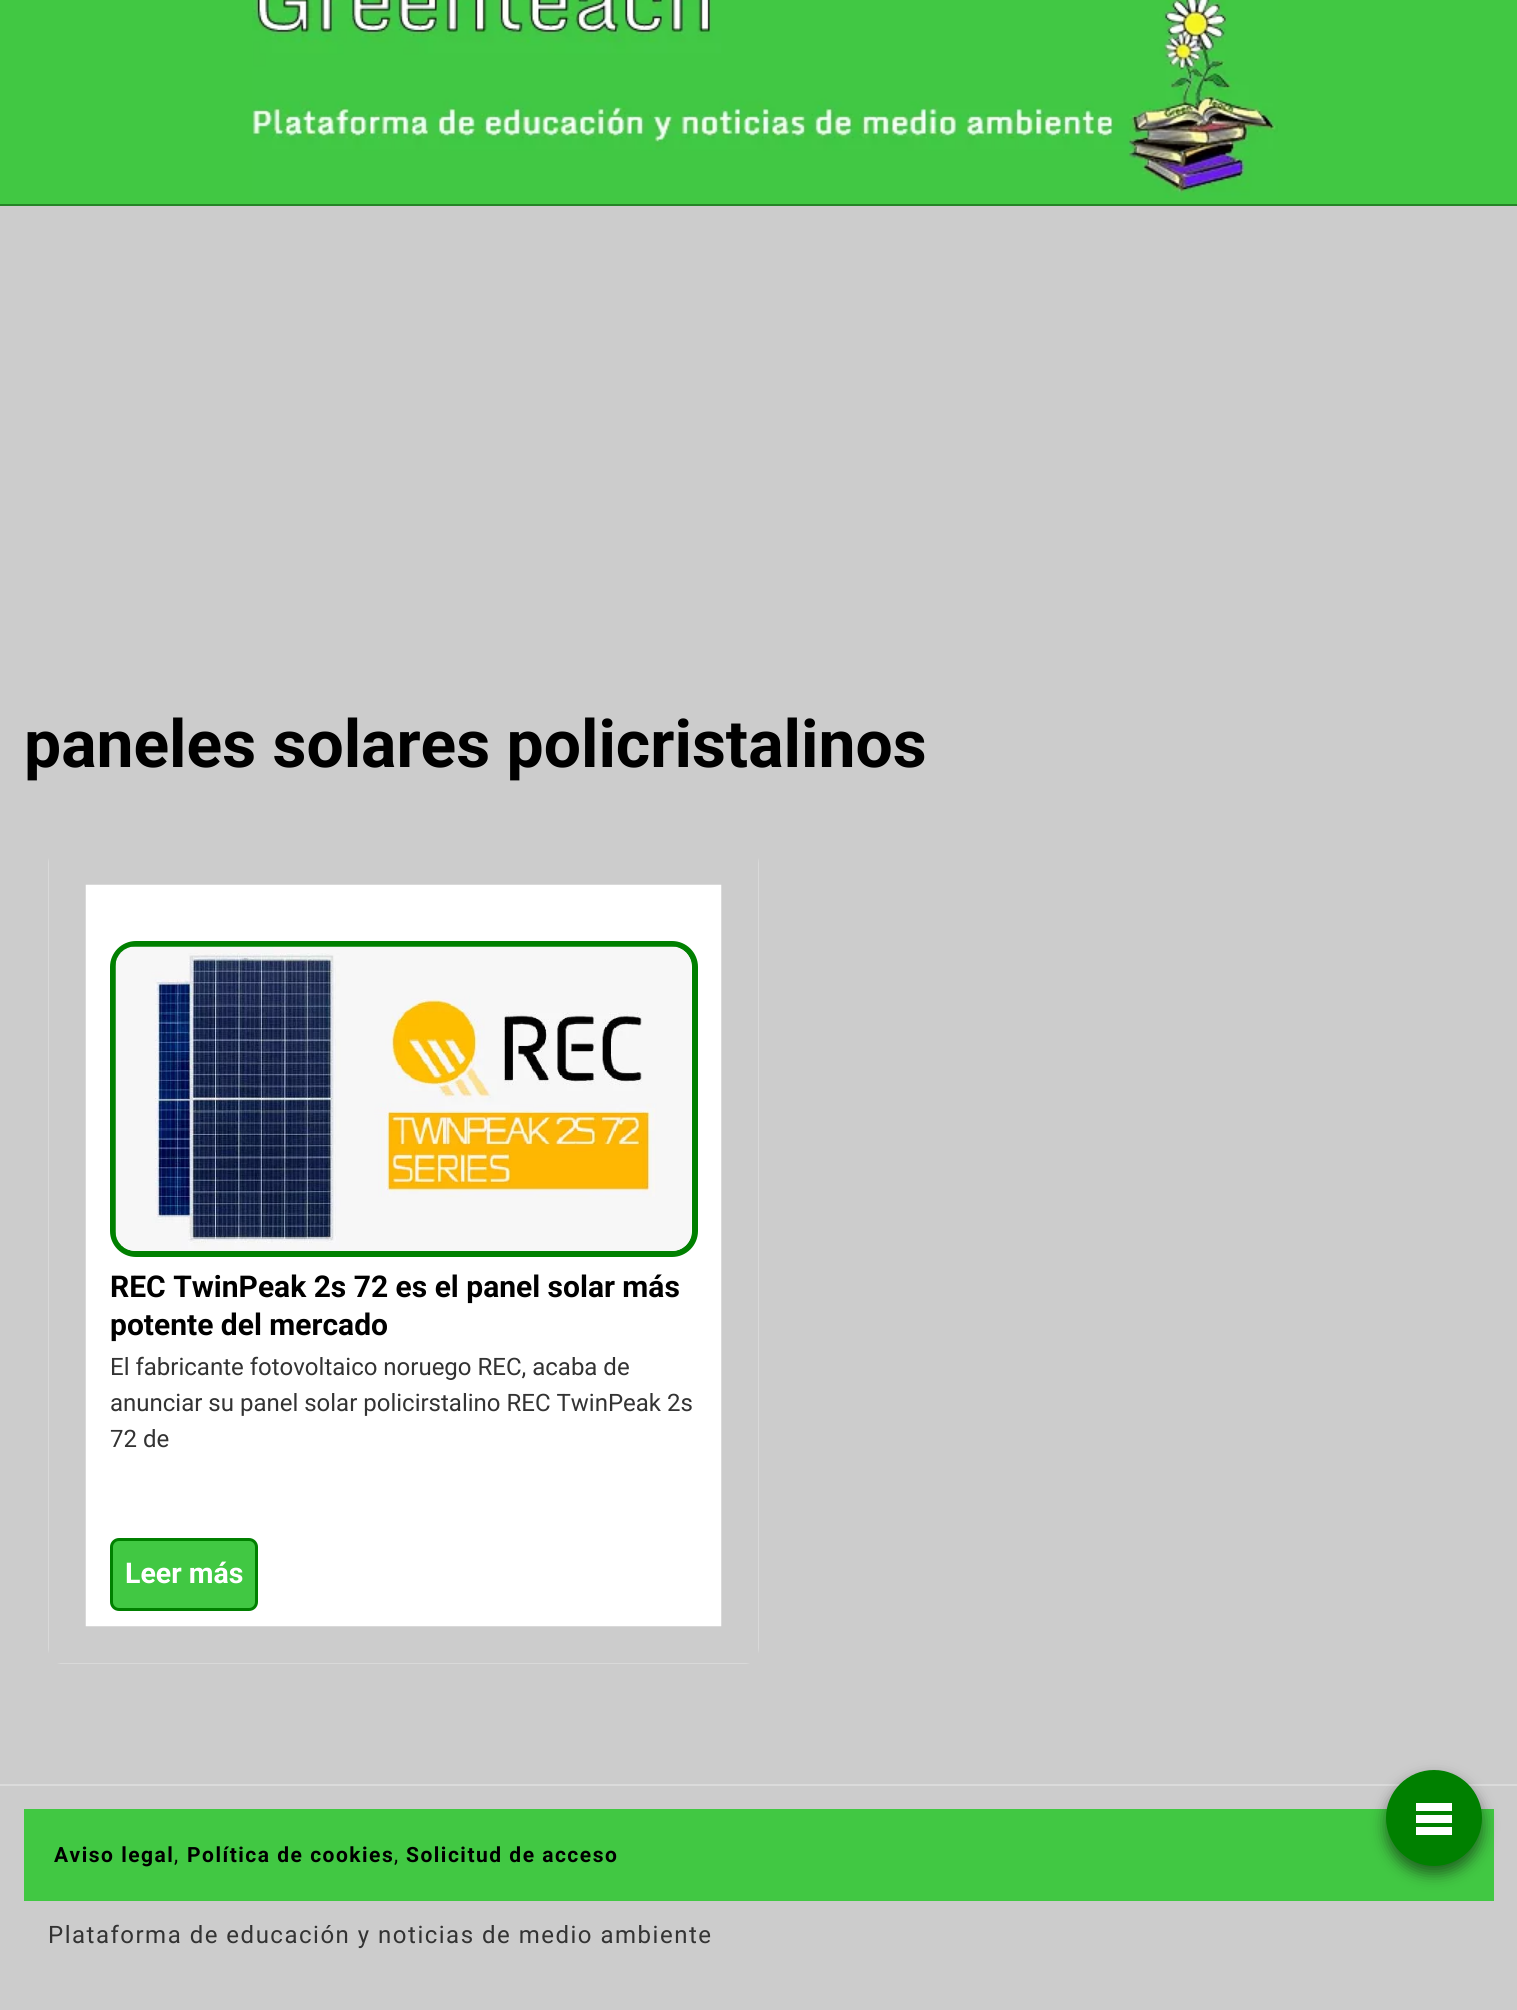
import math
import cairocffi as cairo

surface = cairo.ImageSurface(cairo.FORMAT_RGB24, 1517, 2010)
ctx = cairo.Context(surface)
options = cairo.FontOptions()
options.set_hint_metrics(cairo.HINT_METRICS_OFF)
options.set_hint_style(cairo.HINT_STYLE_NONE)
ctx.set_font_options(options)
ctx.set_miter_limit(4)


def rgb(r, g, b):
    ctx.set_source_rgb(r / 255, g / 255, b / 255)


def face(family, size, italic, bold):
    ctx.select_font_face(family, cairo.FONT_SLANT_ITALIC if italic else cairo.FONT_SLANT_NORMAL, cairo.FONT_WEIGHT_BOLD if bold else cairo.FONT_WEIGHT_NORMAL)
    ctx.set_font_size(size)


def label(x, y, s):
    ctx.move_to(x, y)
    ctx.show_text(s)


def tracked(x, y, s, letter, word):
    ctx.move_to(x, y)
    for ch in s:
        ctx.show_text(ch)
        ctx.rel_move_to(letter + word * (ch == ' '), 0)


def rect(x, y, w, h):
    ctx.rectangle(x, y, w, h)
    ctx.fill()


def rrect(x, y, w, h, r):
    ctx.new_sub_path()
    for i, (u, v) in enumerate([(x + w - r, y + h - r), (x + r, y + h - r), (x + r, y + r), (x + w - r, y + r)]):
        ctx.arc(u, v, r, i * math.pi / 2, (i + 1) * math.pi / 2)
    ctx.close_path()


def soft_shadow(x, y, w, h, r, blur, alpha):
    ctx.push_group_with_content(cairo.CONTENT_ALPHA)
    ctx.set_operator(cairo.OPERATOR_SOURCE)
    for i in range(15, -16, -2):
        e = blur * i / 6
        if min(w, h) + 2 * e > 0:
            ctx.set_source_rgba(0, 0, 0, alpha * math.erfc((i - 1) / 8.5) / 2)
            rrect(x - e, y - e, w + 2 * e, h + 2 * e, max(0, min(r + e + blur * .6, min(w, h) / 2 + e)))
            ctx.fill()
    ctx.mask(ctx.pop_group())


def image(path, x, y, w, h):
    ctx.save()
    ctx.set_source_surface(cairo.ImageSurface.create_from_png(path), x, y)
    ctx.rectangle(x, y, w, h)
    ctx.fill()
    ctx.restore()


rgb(204, 204, 204)
ctx.paint()
rgb(65, 200, 67)
rect(0, 0, 1517, 204)
rgb(38, 132, 40)
rect(0, 204, 1517, 2)
image('image0.png', 252, 0, 1026, 198)
face('Roboto', 66, 0, 1)
rgb(0, 0, 0)
label(24, 767, 'paneles solares policristalinos')
rgb(255, 255, 255)
ctx.new_path()
ctx.move_to(62, 848)
ctx.line_to(745, 848)
ctx.curve_to(753, 848, 759, 855, 759, 864)
ctx.line_to(759, 1647)
ctx.curve_to(759, 1656, 753, 1664, 745, 1664)
ctx.line_to(62, 1664)
ctx.curve_to(54, 1664, 48, 1656, 48, 1647)
ctx.line_to(48, 864)
ctx.curve_to(48, 855, 54, 848, 62, 848)
ctx.close_path()
ctx.fill()
ctx.new_path()
ctx.move_to(67, 866)
ctx.line_to(740, 866)
ctx.line_to(740, 1645)
ctx.line_to(67, 1645)
ctx.close_path()
rgb(204, 204, 204)
ctx.set_line_width(37.5)
ctx.stroke()
rrect(113, 944, 582, 310, 23)
rgb(0, 128, 0)
ctx.set_line_width(6)
ctx.stroke()
image('image1.png', 115, 946, 577, 305)
face('Roboto', 30, 0, 1)
rgb(0, 0, 0)
label(110, 1297, 'REC TwinPeak 2s 72 es el panel solar más')
label(110, 1335, 'potente del mercado')
face('Roboto', 24, 0, 0)
rgb(51, 51, 51)
label(110, 1375, 'El fabricante fotovoltaico noruego REC, acaba de')
label(110, 1411, 'anunciar su panel solar policirstalino REC TwinPeak 2s')
label(110, 1447, '72 de')
rgb(65, 200, 67)
rrect(111.5, 1539.5, 145, 70, 7.5)
ctx.fill_preserve()
rgb(0, 128, 0)
ctx.set_line_width(3)
ctx.stroke()
face('Roboto', 28.5, 0, 1)
rgb(255, 255, 255)
label(125, 1583, 'Leer más')
rgb(219, 219, 219)
rect(0, 1784, 1517, 2)
rgb(65, 200, 67)
rect(24, 1809, 1470, 92)
face('Roboto', 21, 0, 1)
rgb(0, 0, 0)
tracked(54, 1862, 'Aviso legal', 1.5, 0)
face('Roboto', 21, 0, 0)
tracked(174, 1862, ',', 1.5, 0)
face('Roboto', 21, 0, 1)
tracked(187, 1862, 'Política de cookies', 1.5, 0)
face('Roboto', 21, 0, 0)
tracked(394, 1862, ',', 1.5, 0)
face('Roboto', 21, 0, 1)
tracked(406, 1862, 'Solicitud de acceso', 1.5, 0)
face('Roboto', 24, 0, 0)
rgb(51, 51, 51)
tracked(48, 1943, 'Plataforma de educación y noticias de medio ambiente', 1.5, 0)
rgb(0, 0, 0)
soft_shadow(1386, 1778, 96, 96, 48, 7.5, 0.5)
rgb(0, 128, 0)
ctx.arc(1434, 1818, 48, 0, 2 * math.pi)
ctx.fill()
rgb(255, 255, 255)
rect(1416, 1815, 36, 8)
rect(1416, 1803, 36, 8)
rect(1416, 1827, 36, 8)
surface.write_to_png('render.png')
